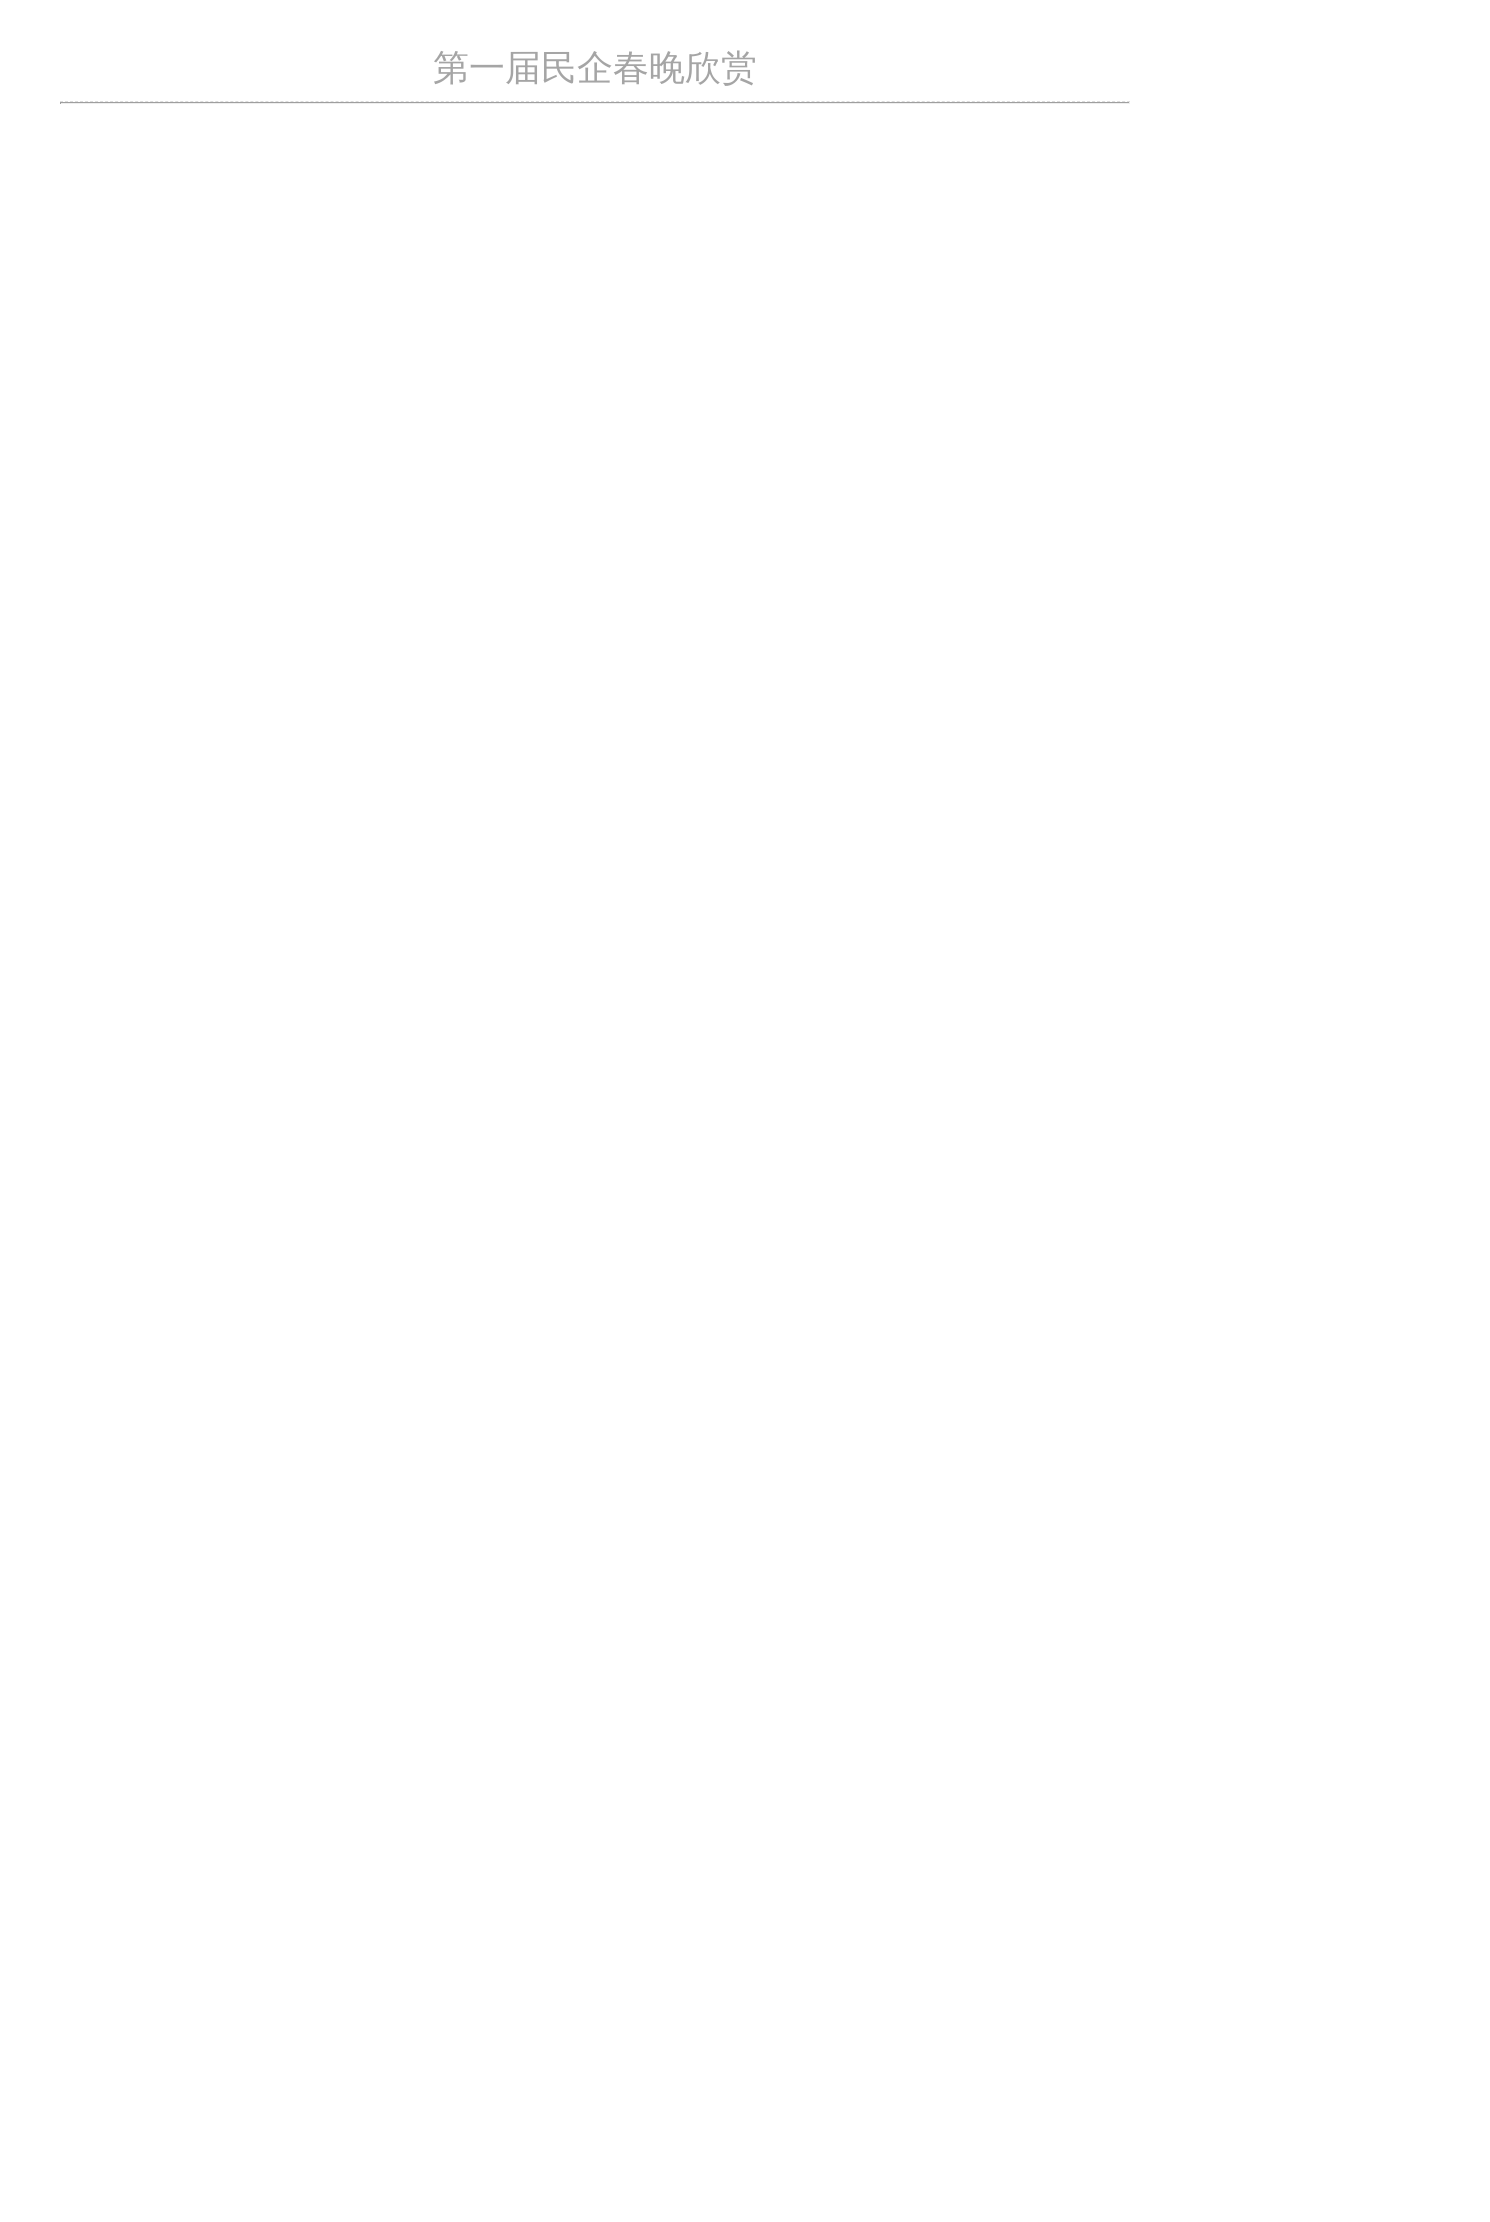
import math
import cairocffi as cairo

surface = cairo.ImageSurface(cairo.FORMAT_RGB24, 1490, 2222)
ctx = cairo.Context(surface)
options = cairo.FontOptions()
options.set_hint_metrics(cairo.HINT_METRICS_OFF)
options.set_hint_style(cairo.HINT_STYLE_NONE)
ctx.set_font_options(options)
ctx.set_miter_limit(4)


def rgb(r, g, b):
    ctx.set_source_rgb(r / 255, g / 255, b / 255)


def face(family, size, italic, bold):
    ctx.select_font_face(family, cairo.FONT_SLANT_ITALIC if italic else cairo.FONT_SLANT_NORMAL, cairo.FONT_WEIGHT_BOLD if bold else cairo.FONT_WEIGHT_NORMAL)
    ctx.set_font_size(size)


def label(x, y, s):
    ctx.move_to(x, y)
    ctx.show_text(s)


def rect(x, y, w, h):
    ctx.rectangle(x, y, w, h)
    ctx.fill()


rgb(255, 255, 255)
ctx.paint()
ctx.new_path()
ctx.move_to(60, 101.5)
ctx.line_to(1130, 101.5)
rgb(221, 221, 221)
ctx.set_line_width(1)
ctx.set_dash([3, 2.01])
ctx.stroke()
face('WenQuanYi Zen Hei Medium', 36, 0, 0)
rgb(165, 165, 165)
label(433, 80, '第一届民企春晚欣赏')
rgb(159, 159, 159)
rect(60, 102, 1070, 1)
rgb(238, 238, 238)
rect(1129, 102, 1, 2)
rect(60, 103, 1070, 1)
rgb(159, 159, 159)
rect(60, 102, 1, 2)
surface.write_to_png('render.png')
